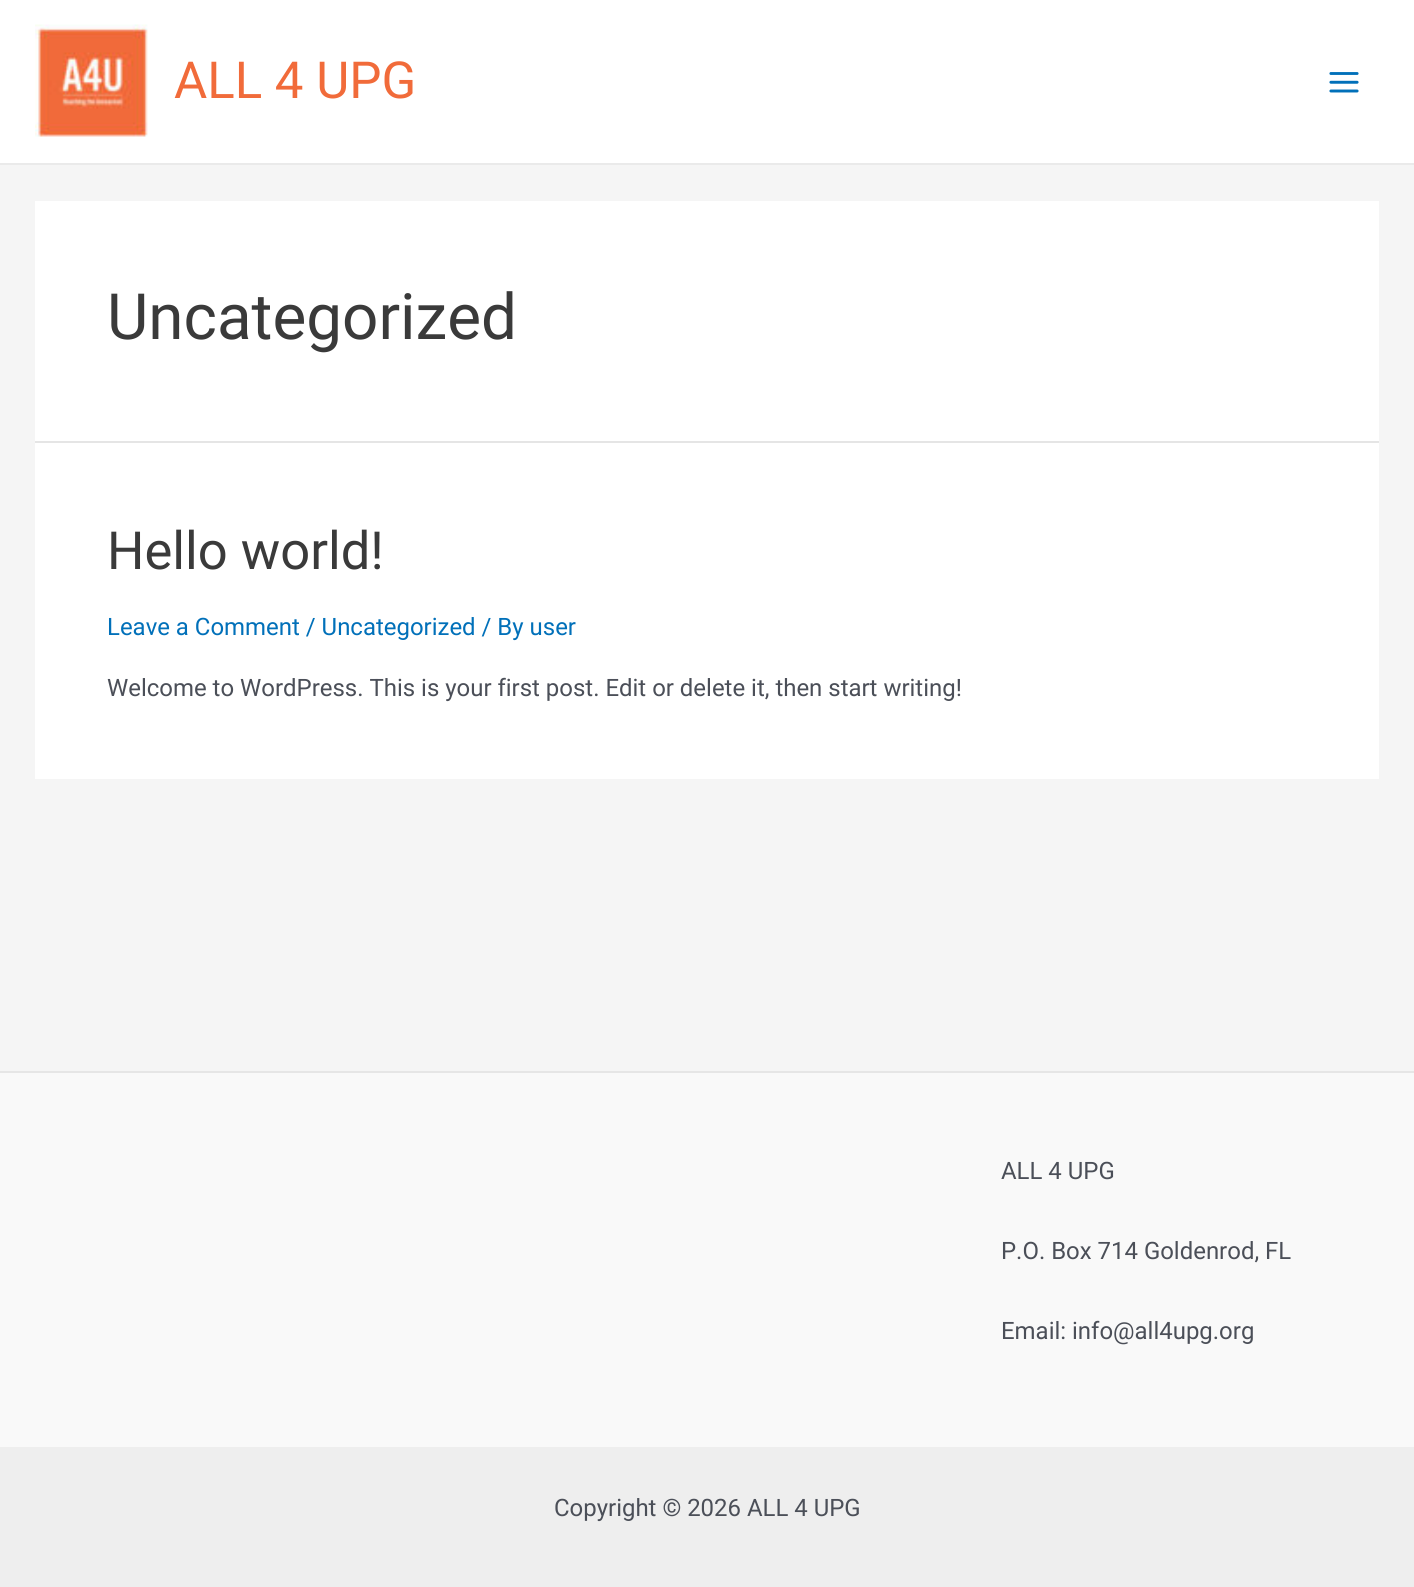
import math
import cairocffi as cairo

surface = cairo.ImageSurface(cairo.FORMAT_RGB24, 1414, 1587)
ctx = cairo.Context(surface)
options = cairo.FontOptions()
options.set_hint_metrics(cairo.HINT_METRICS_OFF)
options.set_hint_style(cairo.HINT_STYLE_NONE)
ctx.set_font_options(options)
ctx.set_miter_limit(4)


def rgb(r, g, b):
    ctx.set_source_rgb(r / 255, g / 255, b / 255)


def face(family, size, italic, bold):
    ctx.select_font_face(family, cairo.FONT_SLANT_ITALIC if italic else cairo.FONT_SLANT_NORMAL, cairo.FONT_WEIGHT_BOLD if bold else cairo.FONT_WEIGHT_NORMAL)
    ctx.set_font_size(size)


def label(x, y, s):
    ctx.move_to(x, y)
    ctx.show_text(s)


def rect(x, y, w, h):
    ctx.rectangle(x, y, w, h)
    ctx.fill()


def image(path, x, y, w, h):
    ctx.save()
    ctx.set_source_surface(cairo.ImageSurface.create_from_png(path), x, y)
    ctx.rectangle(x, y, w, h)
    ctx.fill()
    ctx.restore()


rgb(245, 245, 245)
ctx.paint()
rgb(255, 255, 255)
rect(0, 0, 1414, 163)
rgb(234, 234, 234)
rect(0, 163, 1414, 2)
image('image0.png', 35, 24, 113, 113)
face('Roboto', 51, 0, 0)
rgb(241, 107, 58)
label(174, 98, 'ALL 4 UPG')
image('image1.png', 1329, 72, 30, 21)
rgb(255, 255, 255)
rect(35, 201, 1344, 240)
rgb(229, 229, 229)
rect(35, 441, 1344, 2)
face('Roboto', 63.75, 0, 0)
rgb(58, 58, 58)
label(107, 339, 'Uncategorized')
rgb(255, 255, 255)
rect(35, 443, 1344, 336)
face('Roboto', 52.5, 0, 0)
rgb(58, 58, 58)
label(107, 569, 'Hello world!')
face('Roboto', 23.95, 0, 0)
rgb(1, 112, 185)
label(107, 635, 'Leave a Comment / Uncategorized / By user')
rgb(75, 79, 88)
label(107, 696, 'Welcome to WordPress. This is your first post. Edit or delete it, then start writing!')
rgb(249, 249, 249)
rect(0, 1073, 1414, 374)
rgb(230, 230, 230)
rect(0, 1071, 1414, 2)
rgb(75, 79, 88)
label(1001, 1179, 'ALL 4 UPG')
label(1001, 1259, 'P.O. Box 714 Goldenrod, FL')
label(1001, 1339, 'Email: info@all4upg.org')
rgb(238, 238, 238)
rect(0, 1447, 1414, 140)
rgb(75, 79, 88)
label(554, 1516, 'Copyright © 2026 ALL 4 UPG')
surface.write_to_png('render.png')
